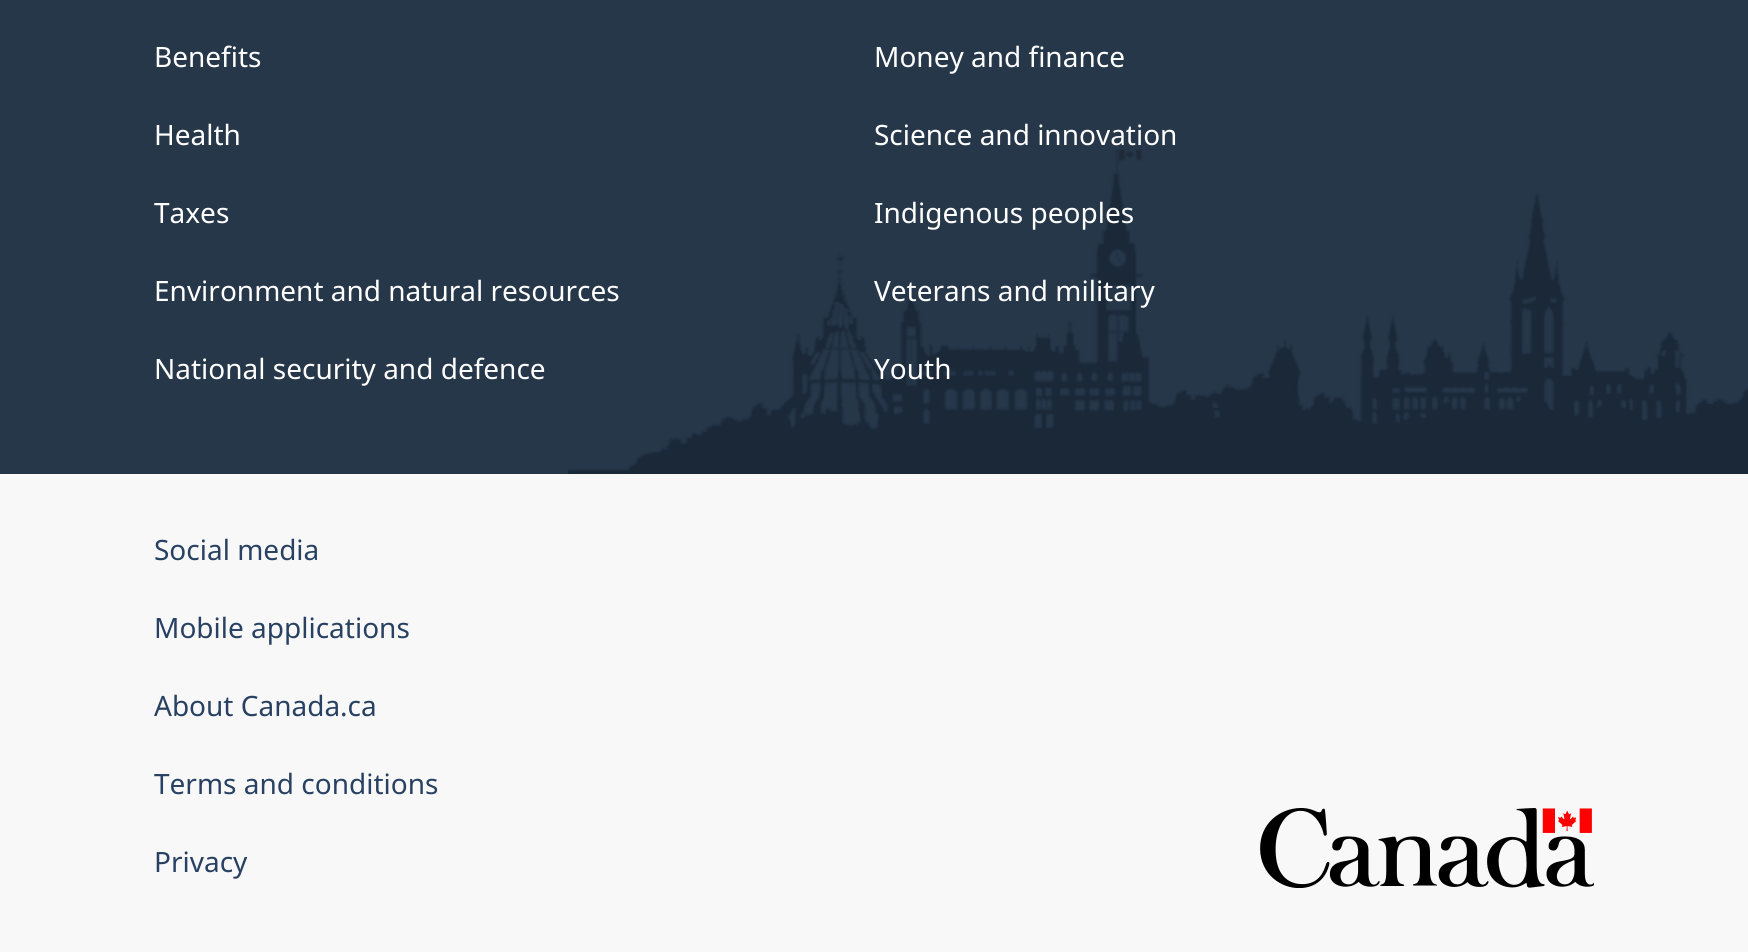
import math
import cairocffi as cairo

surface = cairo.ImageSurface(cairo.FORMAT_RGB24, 1748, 952)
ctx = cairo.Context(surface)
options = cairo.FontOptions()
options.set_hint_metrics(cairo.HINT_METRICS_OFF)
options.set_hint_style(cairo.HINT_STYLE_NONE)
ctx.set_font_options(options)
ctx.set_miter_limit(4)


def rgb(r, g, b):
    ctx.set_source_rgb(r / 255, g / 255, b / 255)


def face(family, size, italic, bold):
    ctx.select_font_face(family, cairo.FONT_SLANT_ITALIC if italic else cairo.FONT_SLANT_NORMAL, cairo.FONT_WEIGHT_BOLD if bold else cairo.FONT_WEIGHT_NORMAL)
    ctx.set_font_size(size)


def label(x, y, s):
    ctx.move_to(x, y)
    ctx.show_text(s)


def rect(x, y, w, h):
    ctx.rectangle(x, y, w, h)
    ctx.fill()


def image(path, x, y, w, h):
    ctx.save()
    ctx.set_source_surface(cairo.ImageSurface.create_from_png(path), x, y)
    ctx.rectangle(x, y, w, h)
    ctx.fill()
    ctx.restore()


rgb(38, 55, 74)
ctx.paint()
image('image0.png', 567, 149, 1181, 325)
face('Noto Sans', 28, 0, 0)
rgb(255, 255, 255)
label(154, 67, 'Benefits')
label(874, 67, 'Money and finance')
label(154, 145, 'Health')
label(874, 145, 'Science and innovation')
label(154, 223, 'Taxes')
label(874, 223, 'Indigenous peoples')
label(154, 301, 'Environment and natural resources')
label(874, 301, 'Veterans and military')
label(154, 379, 'National security and defence')
label(874, 379, 'Youth')
rgb(248, 248, 248)
rect(0, 474, 1748, 478)
rgb(40, 65, 98)
label(154, 560, 'Social media')
label(154, 638, 'Mobile applications')
label(154, 716, 'About Canada.ca')
label(154, 794, 'Terms and conditions')
label(154, 872, 'Privacy')
image('image1.png', 1260, 808, 334, 80)
surface.write_to_png('render.png')
